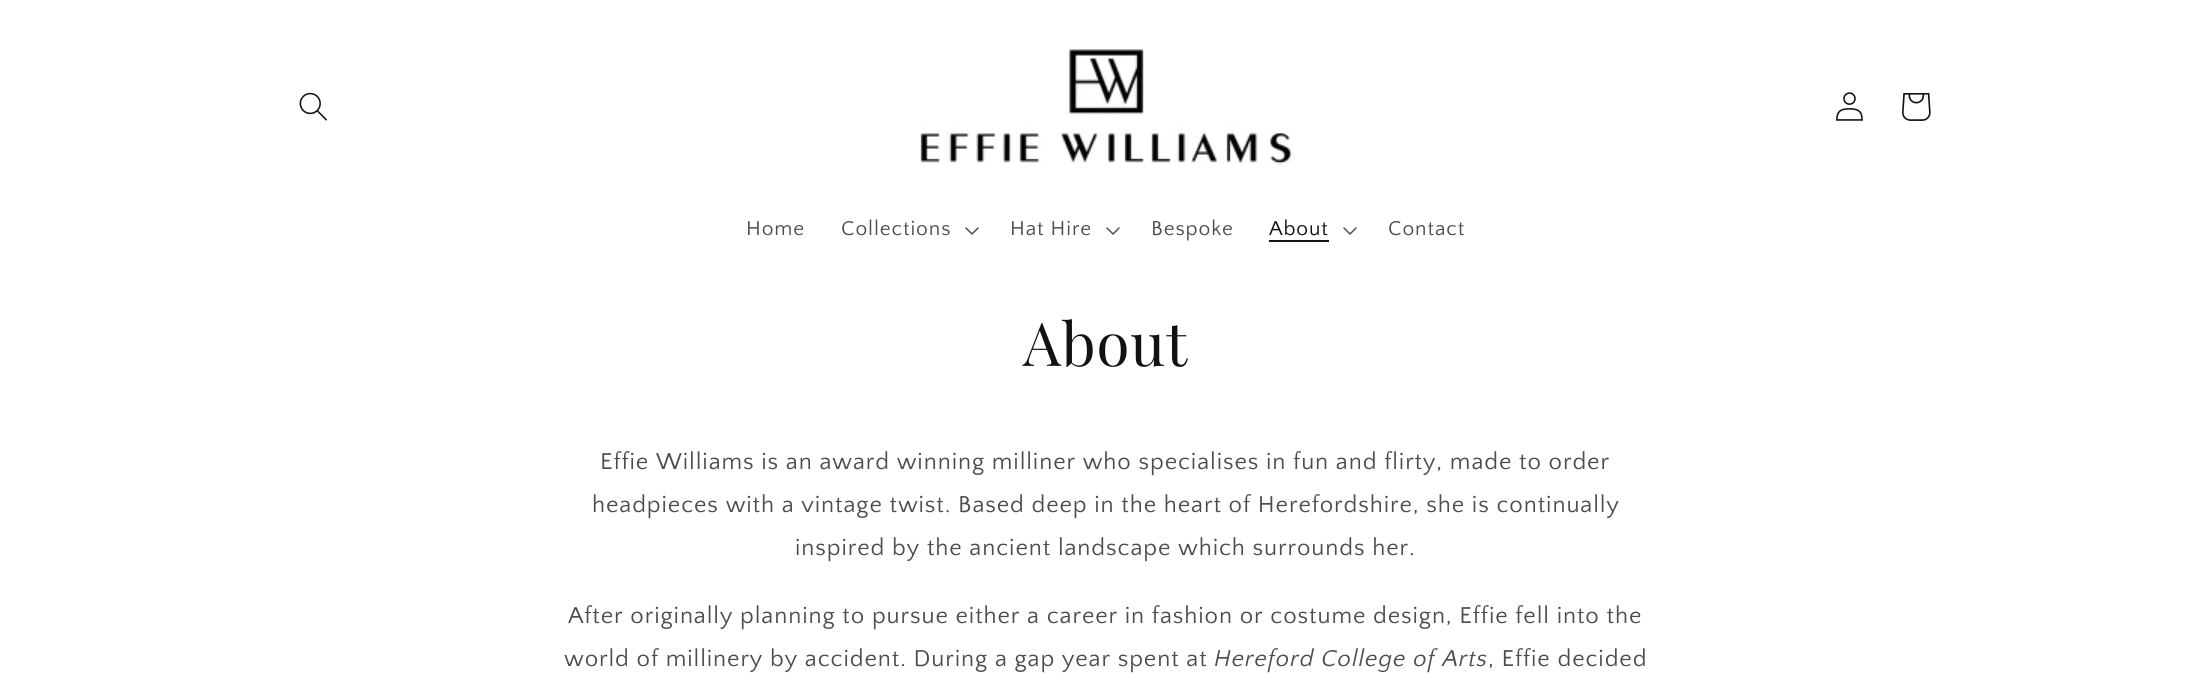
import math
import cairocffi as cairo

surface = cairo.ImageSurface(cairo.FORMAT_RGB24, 2210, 685)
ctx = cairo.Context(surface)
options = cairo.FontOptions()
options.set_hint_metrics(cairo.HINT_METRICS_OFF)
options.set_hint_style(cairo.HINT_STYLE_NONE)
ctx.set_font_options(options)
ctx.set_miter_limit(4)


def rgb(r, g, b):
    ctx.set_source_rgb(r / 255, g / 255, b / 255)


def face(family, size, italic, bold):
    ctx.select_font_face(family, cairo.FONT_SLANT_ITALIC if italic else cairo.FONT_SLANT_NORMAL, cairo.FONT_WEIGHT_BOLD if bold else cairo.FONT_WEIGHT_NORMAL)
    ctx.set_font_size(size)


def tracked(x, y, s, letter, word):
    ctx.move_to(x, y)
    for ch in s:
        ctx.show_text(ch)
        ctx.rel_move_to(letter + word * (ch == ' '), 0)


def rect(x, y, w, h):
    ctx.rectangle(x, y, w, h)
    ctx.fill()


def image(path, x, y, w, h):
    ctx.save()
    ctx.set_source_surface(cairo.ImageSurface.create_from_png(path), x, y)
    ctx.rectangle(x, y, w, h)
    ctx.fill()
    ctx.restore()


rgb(255, 255, 255)
ctx.paint()
image('image0.png', 299, 92, 28, 29)
image('image1.png', 920, 49, 372, 115)
image('image2.png', 1836, 92, 27, 29)
image('image3.png', 1902, 93, 29, 28)
face('Quattrocento Sans', 21, 0, 0)
rgb(77, 77, 77)
tracked(746, 235, 'Home', 0.9, 0)
tracked(841, 235, 'Collections', 0.9, 0)
image('image4.png', 965, 227, 14, 8)
tracked(1010, 235, 'Hat Hire', 0.9, 0)
image('image4.png', 1106, 227, 14, 8)
tracked(1151, 235, 'Bespoke', 0.9, 0)
rgb(18, 18, 18)
tracked(1269, 235, 'About', 0.9, 0)
rect(1269, 240, 60, 2)
image('image4.png', 1343, 227, 14, 8)
rgb(77, 77, 77)
tracked(1388, 235, 'Contact', 0.9, 0)
face('Playfair Display', 60, 0, 0)
rgb(18, 18, 18)
tracked(1023, 366, 'About', 0.9, 0)
face('Quattrocento Sans', 24, 0, 0)
rgb(77, 77, 77)
tracked(600, 469, 'Effie Williams is an award winning milliner who specialises in fun and flirty, made to order', 0.9, 0)
tracked(592, 512, 'headpieces with a vintage twist. Based deep in the heart of Herefordshire, she is continually', 0.9, 0)
tracked(795, 555, 'inspired by the ancient landscape which surrounds her.', 0.9, 0)
tracked(568, 623, 'After originally planning to pursue either a career in fashion or costume design, Effie fell into the', 0.9, 0)
tracked(564, 666, 'world of millinery by accident. During a gap year spent at', 0.9, 0)
face('Quattrocento Sans', 24, 1, 0)
tracked(1214, 666, 'Hereford College of Arts', 0.9, 0)
face('Quattrocento Sans', 24, 0, 0)
tracked(1488, 666, ', Effie decided', 0.9, 0)
surface.write_to_png('render.png')
